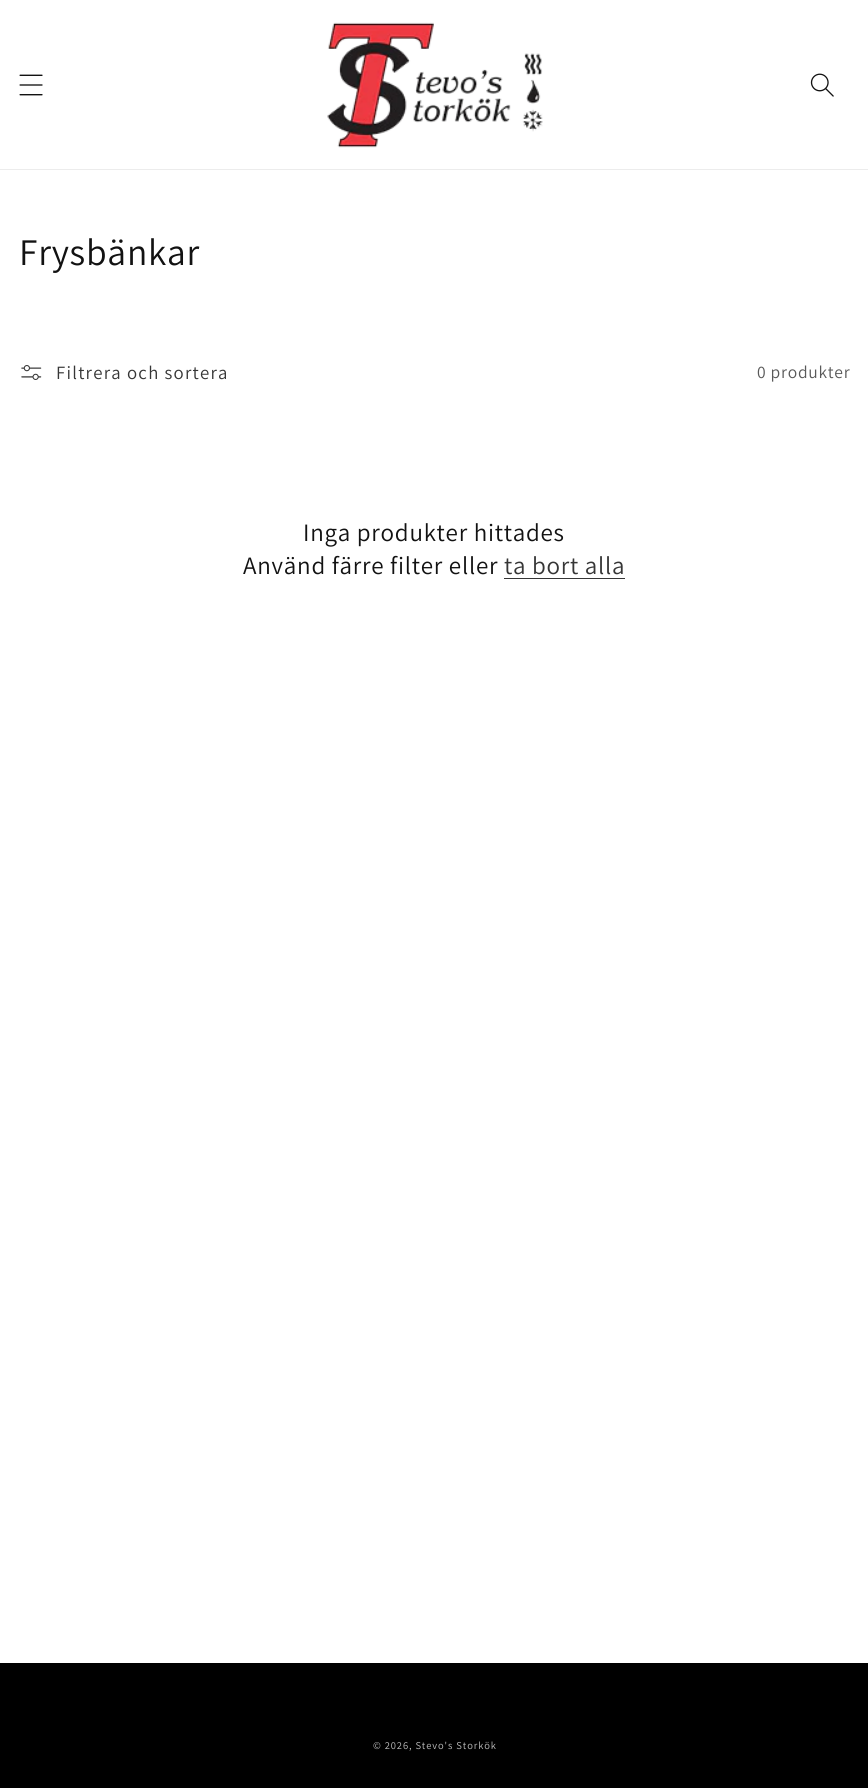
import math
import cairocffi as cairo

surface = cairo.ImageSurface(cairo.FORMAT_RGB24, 868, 1788)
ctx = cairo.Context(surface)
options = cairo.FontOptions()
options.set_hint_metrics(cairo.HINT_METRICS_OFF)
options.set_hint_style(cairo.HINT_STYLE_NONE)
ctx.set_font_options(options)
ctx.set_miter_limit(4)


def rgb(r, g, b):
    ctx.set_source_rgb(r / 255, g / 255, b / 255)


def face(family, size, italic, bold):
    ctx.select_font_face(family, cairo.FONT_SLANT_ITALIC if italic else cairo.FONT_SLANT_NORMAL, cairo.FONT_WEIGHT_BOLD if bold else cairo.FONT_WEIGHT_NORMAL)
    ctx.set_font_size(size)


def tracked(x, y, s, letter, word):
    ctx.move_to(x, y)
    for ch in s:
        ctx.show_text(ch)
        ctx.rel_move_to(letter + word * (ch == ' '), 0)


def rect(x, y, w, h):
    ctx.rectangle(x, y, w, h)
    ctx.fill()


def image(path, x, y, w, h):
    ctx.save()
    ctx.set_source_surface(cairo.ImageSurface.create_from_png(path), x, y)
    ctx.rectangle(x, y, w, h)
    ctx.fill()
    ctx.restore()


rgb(255, 255, 255)
ctx.paint()
rgb(236, 236, 236)
rect(0, 169, 868, 1)
image('image0.png', 19, 74, 24, 22)
image('image1.png', 327, 22, 216, 126)
image('image2.png', 810, 73, 24, 24)
face('Assistant', 37.5, 0, 0)
rgb(18, 18, 18)
tracked(19, 265, 'Frysbänkar', 0.75, 0)
image('image3.png', 21, 365, 21, 15)
face('Assistant', 18.75, 0, 0)
rgb(54, 54, 54)
tracked(56, 379, 'Filtrera och sortera', 1.25, 0)
face('Assistant', 17.5, 0, 0)
rgb(89, 89, 89)
tracked(757, 378, '0 produkter', 0.75, 0)
face('Assistant', 25, 0, 0)
rgb(18, 18, 18)
tracked(303, 541, 'Inga produkter hittades', 0.75, 0)
tracked(243, 574, 'Använd färre filter eller', 0.75, 0)
rgb(54, 54, 54)
tracked(504, 574, 'ta bort alla', 0.75, 0)
rect(504, 578, 121, 1)
rgb(0, 0, 0)
rect(0, 1663, 868, 125)
face('Assistant', 10.5, 0, 0)
rgb(191, 191, 191)
tracked(373, 1749, '© 2026, Stevo\'s Storkök', 0.9, 0)
surface.write_to_png('render.png')
